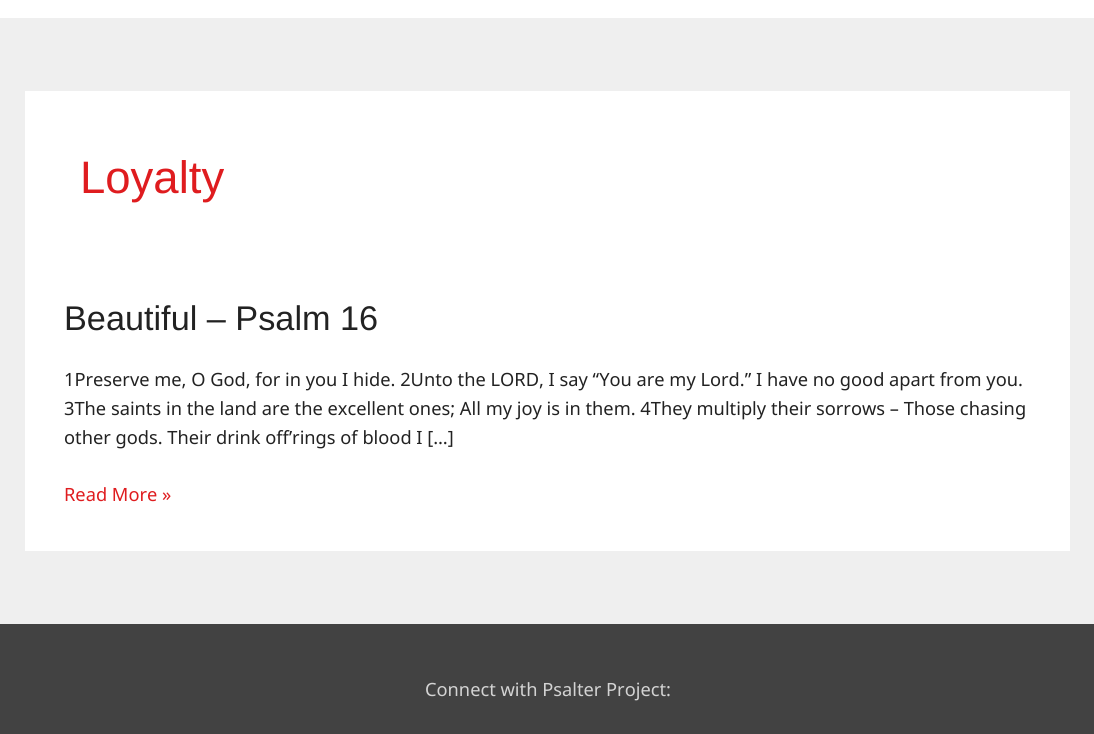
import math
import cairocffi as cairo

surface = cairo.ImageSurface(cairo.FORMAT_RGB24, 1094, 734)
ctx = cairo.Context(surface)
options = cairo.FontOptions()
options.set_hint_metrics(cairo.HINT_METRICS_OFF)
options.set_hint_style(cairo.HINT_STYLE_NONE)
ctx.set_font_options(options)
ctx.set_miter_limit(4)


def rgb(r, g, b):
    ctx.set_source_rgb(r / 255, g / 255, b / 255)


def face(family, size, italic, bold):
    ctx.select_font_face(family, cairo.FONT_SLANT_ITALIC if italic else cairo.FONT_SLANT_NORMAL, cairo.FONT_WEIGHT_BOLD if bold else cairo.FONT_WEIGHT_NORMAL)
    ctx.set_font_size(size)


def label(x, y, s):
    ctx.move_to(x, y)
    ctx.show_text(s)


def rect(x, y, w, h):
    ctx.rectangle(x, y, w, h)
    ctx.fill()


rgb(239, 239, 239)
ctx.paint()
rgb(255, 255, 255)
rect(0, 0, 1094, 18)
rect(25, 91, 1045, 460)
face('Liberation Sans', 45.5, 0, 0)
rgb(223, 28, 31)
label(80, 193, 'Loyalty')
face('Liberation Sans', 34.25, 0, 0)
rgb(34, 34, 34)
label(64, 330, 'Beautiful – Psalm 16')
face('Noto Sans', 18.25, 0, 0)
label(64, 386, '1Preserve me, O God, for in you I hide. 2Unto the LORD, I say “You are my Lord.” I have no good apart from you.')
label(64, 415, '3The saints in the land are the excellent ones; All my joy is in them. 4They multiply their sorrows – Those chasing')
label(64, 444, 'other gods. Their drink off’rings of blood I […]')
rgb(223, 28, 31)
label(64, 501, 'Read More »')
rgb(66, 66, 66)
rect(0, 624, 1094, 110)
rgb(211, 211, 211)
label(425, 696, 'Connect with Psalter Project:')
surface.write_to_png('render.png')
